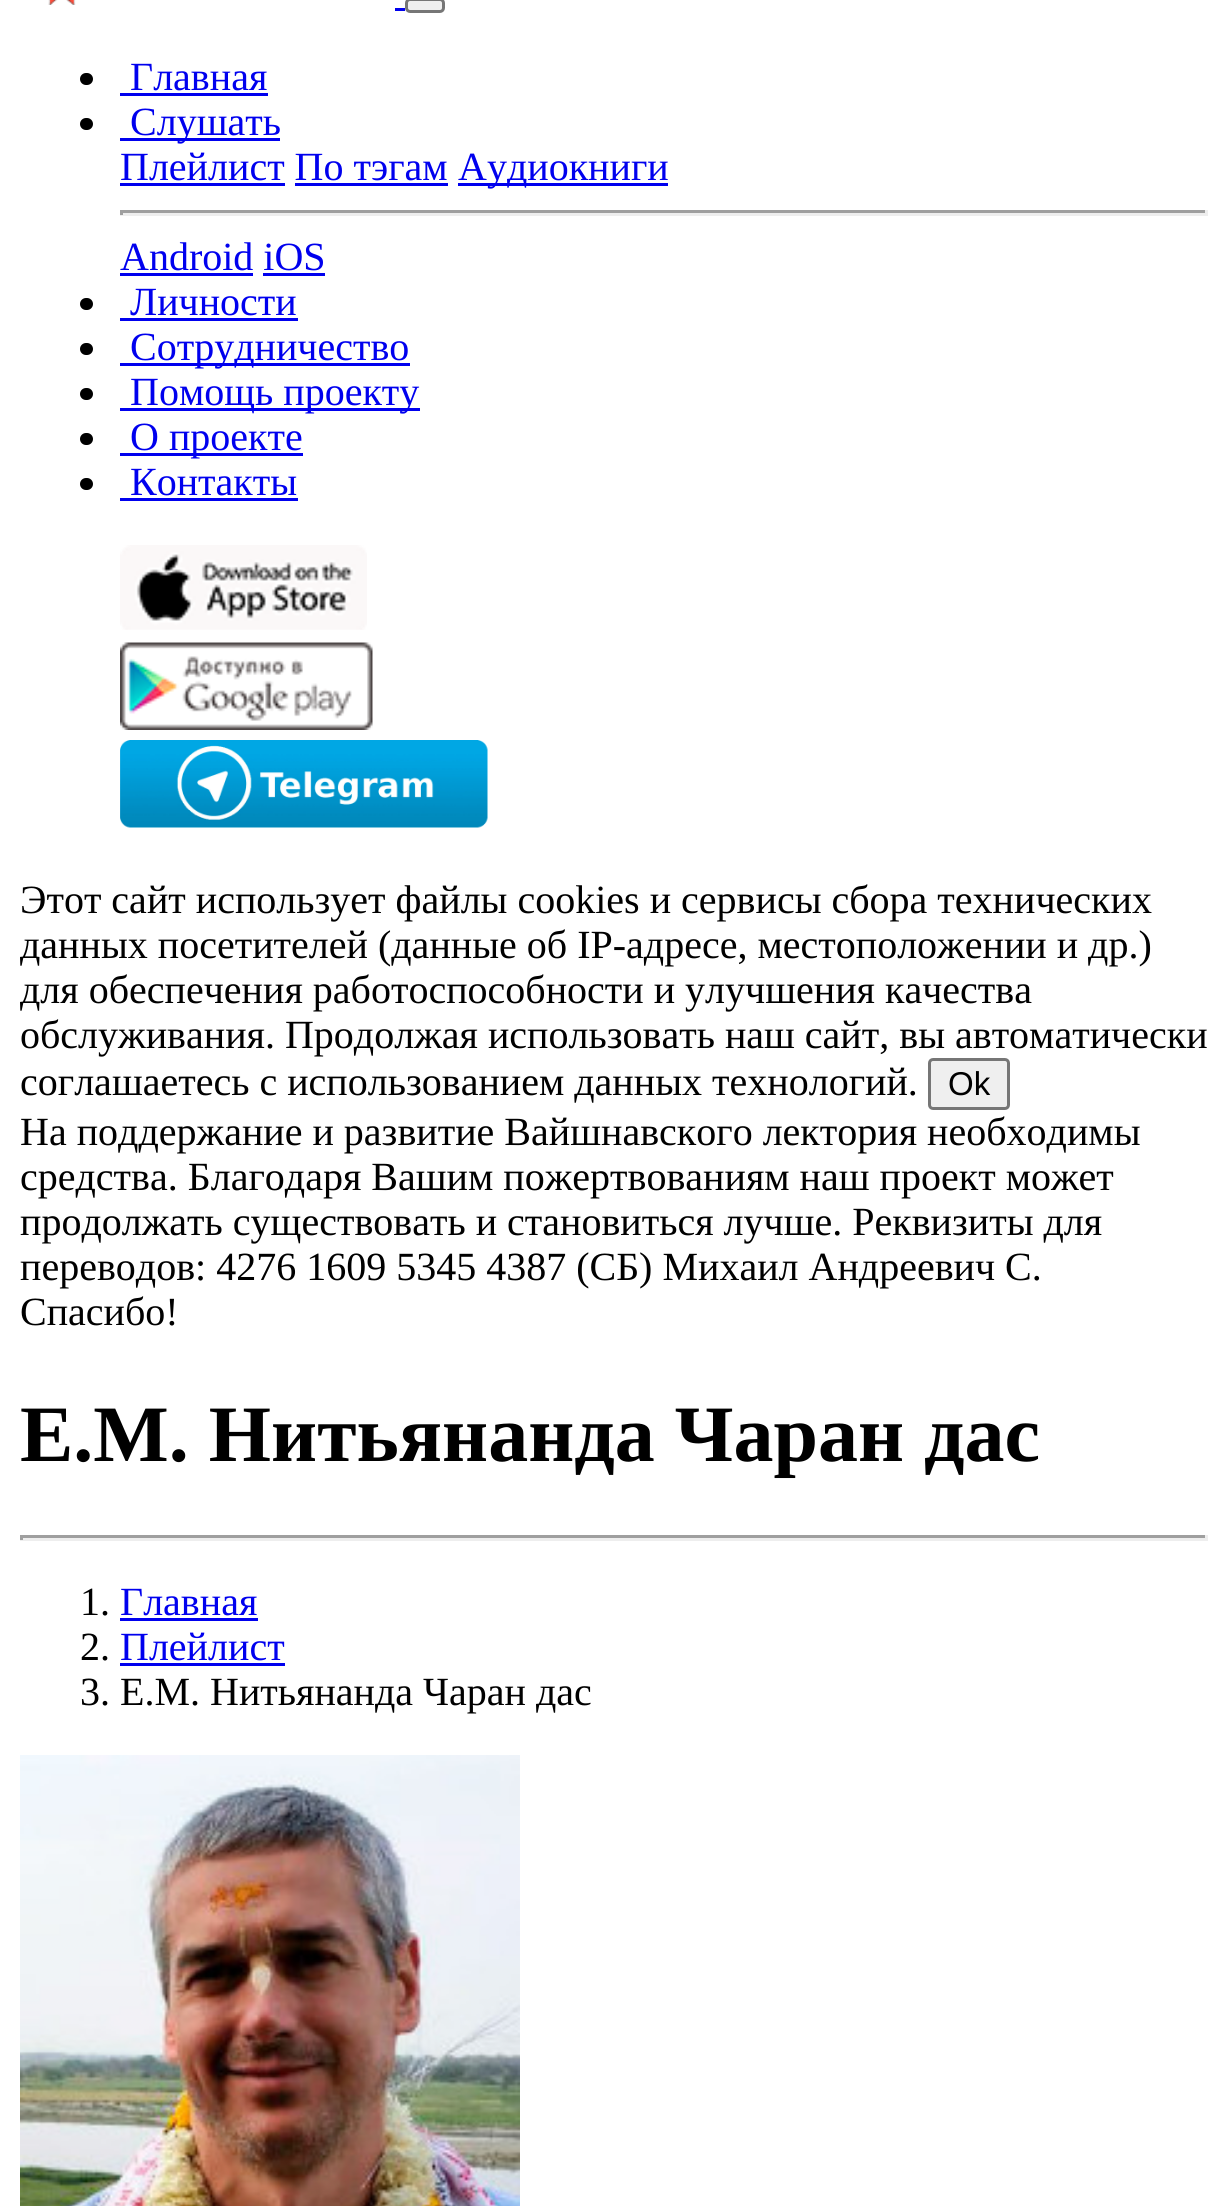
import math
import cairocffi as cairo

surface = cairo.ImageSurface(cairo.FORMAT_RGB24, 1226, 2206)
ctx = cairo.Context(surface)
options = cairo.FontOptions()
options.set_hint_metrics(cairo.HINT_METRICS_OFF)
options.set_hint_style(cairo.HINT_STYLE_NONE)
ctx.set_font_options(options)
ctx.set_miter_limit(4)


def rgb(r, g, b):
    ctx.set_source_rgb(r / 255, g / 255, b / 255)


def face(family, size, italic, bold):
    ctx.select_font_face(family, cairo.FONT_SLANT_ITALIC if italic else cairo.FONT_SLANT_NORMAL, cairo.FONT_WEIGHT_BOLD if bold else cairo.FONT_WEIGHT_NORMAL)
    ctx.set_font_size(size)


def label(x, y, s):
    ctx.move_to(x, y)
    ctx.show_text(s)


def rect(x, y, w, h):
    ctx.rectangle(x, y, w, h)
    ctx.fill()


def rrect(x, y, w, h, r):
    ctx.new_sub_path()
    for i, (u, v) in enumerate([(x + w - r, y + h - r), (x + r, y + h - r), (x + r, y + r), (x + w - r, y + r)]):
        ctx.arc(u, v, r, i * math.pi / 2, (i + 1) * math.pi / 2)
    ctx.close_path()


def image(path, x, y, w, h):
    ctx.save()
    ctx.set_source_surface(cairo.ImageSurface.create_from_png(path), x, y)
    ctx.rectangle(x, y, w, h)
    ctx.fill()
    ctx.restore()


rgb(255, 255, 255)
ctx.paint()
image('image0.png', 48, 0, 28, 5)
rgb(239, 239, 239)
rrect(406.5, -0.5, 37, 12, 3.5)
ctx.fill_preserve()
rgb(118, 118, 118)
ctx.set_line_width(3)
ctx.stroke()
rgb(0, 0, 238)
rect(395, 8, 10, 3)
rgb(0, 0, 0)
rrect(80, 73, 13, 12, 6)
ctx.fill()
face('Liberation Serif', 40, 0, 0)
rgb(0, 0, 238)
label(130, 90, 'Главная')
rect(120, 93, 148, 3)
rgb(0, 0, 0)
rrect(80, 118, 13, 12, 6)
ctx.fill()
rgb(0, 0, 238)
rect(120, 138, 160, 3)
label(130, 135, 'Слушать')
label(120, 180, 'Плейлист По тэгам')
rect(120, 183, 165, 3)
rect(458, 183, 210, 3)
label(458, 180, 'Аудиокниги')
rect(295, 183, 153, 3)
rgb(159, 159, 159)
rect(120, 210, 1088, 3)
rgb(238, 238, 238)
rect(1205, 210, 3, 5)
rect(120, 213, 1088, 3)
rgb(159, 159, 159)
rect(120, 210, 3, 5)
rgb(0, 0, 238)
label(120, 270, 'Android iOS')
rect(120, 273, 133, 3)
rect(263, 273, 62, 3)
rgb(0, 0, 0)
rrect(80, 298, 13, 12, 6)
ctx.fill()
rgb(0, 0, 238)
label(130, 315, 'Личности')
rect(120, 318, 178, 3)
rgb(0, 0, 0)
rrect(80, 343, 13, 12, 6)
ctx.fill()
rgb(0, 0, 238)
rect(120, 363, 290, 3)
label(130, 360, 'Сотрудничество')
rgb(0, 0, 0)
rrect(80, 388, 13, 12, 6)
ctx.fill()
rgb(0, 0, 238)
rect(120, 408, 300, 3)
label(130, 405, 'Помощь проекту')
rgb(0, 0, 0)
rrect(80, 433, 13, 12, 6)
ctx.fill()
rgb(0, 0, 238)
rect(120, 453, 183, 3)
label(130, 450, 'О проекте')
rgb(0, 0, 0)
rrect(80, 478, 13, 12, 6)
ctx.fill()
rgb(0, 0, 238)
label(130, 495, 'Контакты')
rect(120, 498, 178, 3)
image('image1.png', 120, 545, 247, 85)
image('image2.png', 120, 642, 253, 88)
image('image3.png', 120, 740, 368, 88)
rgb(0, 0, 0)
label(20, 913, 'Этот сайт использует файлы cookies и сервисы сбора технических')
label(20, 958, 'данных посетителей (данные об IP-адресе, местоположении и др.)')
label(20, 1003, 'для обеспечения работоспособности и улучшения качества')
label(20, 1048, 'обслуживания. Продолжая использовать наш сайт, вы автоматически')
label(20, 1095, 'соглашаетесь с использованием данных технологий.')
rgb(239, 239, 239)
rrect(929.5, 1059.5, 79, 49, 3.5)
ctx.fill_preserve()
rgb(118, 118, 118)
ctx.stroke()
face('Liberation Sans', 33, 0, 0)
rgb(0, 0, 0)
label(948, 1095, 'Ok')
face('Liberation Serif', 40, 0, 0)
label(20, 1145, 'На поддержание и развитие Вайшнавского лектория необходимы')
label(20, 1190, 'средства. Благодаря Вашим пожертвованиям наш проект может')
label(20, 1235, 'продолжать существовать и становиться лучше. Реквизиты для')
label(20, 1280, 'переводов: 4276 1609 5345 4387 (СБ) Михаил Андреевич С.')
label(20, 1325, 'Спасибо!')
face('Liberation Serif', 80, 0, 1)
label(20, 1461, 'Е.М. Нитьянанда Чаран дас')
rgb(159, 159, 159)
rect(20, 1535, 1188, 3)
rgb(238, 238, 238)
rect(1205, 1535, 3, 5)
rect(20, 1538, 1188, 3)
rgb(159, 159, 159)
rect(20, 1535, 3, 5)
face('Liberation Serif', 40, 0, 0)
rgb(0, 0, 0)
label(80, 1615, '1.')
rgb(0, 0, 238)
label(120, 1615, 'Главная')
rect(120, 1618, 138, 3)
rgb(0, 0, 0)
label(80, 1660, '2.')
rgb(0, 0, 238)
label(120, 1660, 'Плейлист')
rect(120, 1663, 165, 3)
rgb(0, 0, 0)
label(80, 1705, '3. Е.М. Нитьянанда Чаран дас')
image('image4.png', 20, 1755, 500, 451)
surface.write_to_png('render.png')
